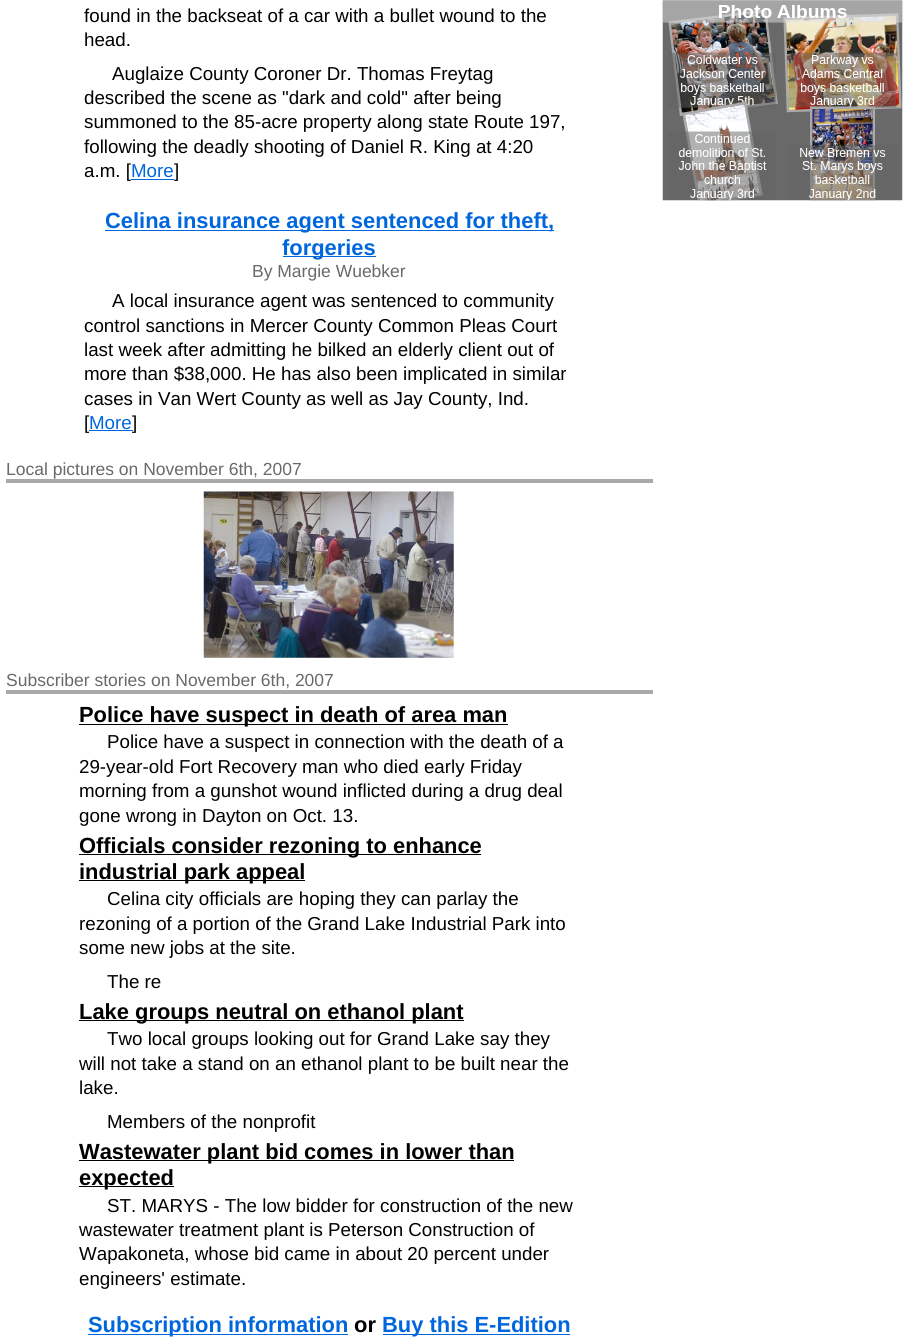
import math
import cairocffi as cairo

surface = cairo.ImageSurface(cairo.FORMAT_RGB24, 911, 1344)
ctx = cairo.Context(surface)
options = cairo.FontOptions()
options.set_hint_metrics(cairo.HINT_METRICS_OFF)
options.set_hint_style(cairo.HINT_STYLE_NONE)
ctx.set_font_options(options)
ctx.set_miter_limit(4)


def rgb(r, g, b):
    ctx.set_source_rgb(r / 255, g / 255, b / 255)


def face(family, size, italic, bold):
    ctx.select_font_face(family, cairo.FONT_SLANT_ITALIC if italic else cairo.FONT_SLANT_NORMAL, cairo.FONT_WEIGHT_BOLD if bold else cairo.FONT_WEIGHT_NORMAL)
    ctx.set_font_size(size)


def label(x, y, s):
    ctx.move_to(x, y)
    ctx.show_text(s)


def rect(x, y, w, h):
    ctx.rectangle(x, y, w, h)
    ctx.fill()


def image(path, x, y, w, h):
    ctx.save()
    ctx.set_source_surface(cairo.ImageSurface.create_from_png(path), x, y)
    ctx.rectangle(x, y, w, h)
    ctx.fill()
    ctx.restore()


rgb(255, 255, 255)
ctx.paint()
face('Liberation Sans', 18.75, 0, 0)
rgb(0, 0, 0)
label(84, 22, 'found in the backseat of a car with a bullet wound to the')
label(84, 46, 'head.')
label(112, 80, 'Auglaize County Coroner Dr. Thomas Freytag')
label(84, 104, 'described the scene as "dark and cold" after being')
label(84, 128, 'summoned to the 85-acre property along state Route 197,')
label(84, 153, 'following the deadly shooting of Daniel R. King at 4:20')
label(84, 177, 'a.m. [')
rgb(0, 102, 221)
label(131, 177, 'More')
rect(131, 179, 43, 1)
rgb(0, 0, 0)
label(174, 177, ']')
rgb(0, 102, 221)
rect(105, 230, 449, 1)
face('Liberation Sans', 21.9, 0, 1)
label(105, 228, 'Celina insurance agent sentenced for theft,')
rect(283, 256, 93, 1)
label(282, 255, 'forgeries')
face('Liberation Sans', 17.5, 0, 0)
rgb(105, 105, 105)
label(252, 277, 'By Margie Wuebker')
face('Liberation Sans', 18.75, 0, 0)
rgb(0, 0, 0)
label(112, 307, 'A local insurance agent was sentenced to community')
label(84, 332, 'control sanctions in Mercer County Common Pleas Court')
label(84, 356, 'last week after admitting he bilked an elderly client out of')
label(84, 380, 'more than $38,000. He has also been implicated in similar')
label(84, 405, 'cases in Van Wert County as well as Jay County, Ind.')
label(84, 429, '[')
rgb(0, 102, 221)
label(89, 429, 'More')
rect(89, 430, 44, 1)
rgb(0, 0, 0)
label(132, 429, ']')
rgb(169, 169, 169)
rect(6, 479, 647, 4)
face('Liberation Sans', 17.5, 0, 0)
rgb(105, 105, 105)
label(6, 475, 'Local pictures on November 6th, 2007')
image('image0.png', 203, 491, 251, 167)
rgb(169, 169, 169)
rect(6, 690, 647, 4)
rgb(105, 105, 105)
label(6, 686, 'Subscriber stories on November 6th, 2007')
rgb(0, 0, 0)
rect(79, 724, 429, 1)
face('Liberation Sans', 21.9, 0, 1)
label(79, 722, 'Police have suspect in death of area man')
face('Liberation Sans', 18.75, 0, 0)
label(107, 748, 'Police have a suspect in connection with the death of a')
label(79, 773, '29-year-old Fort Recovery man who died early Friday')
label(79, 797, 'morning from a gunshot wound inflicted during a drug deal')
label(79, 822, 'gone wrong in Dayton on Oct. 13.')
rect(79, 854, 402, 1)
face('Liberation Sans', 21.9, 0, 1)
label(79, 853, 'Officials consider rezoning to enhance')
rect(79, 880, 226, 1)
label(79, 879, 'industrial park appeal')
face('Liberation Sans', 18.75, 0, 0)
label(107, 905, 'Celina city officials are hoping they can parlay the')
label(79, 930, 'rezoning of a portion of the Grand Lake Industrial Park into')
label(79, 954, 'some new jobs at the site.')
label(107, 988, 'The re')
rect(79, 1020, 385, 1)
face('Liberation Sans', 21.9, 0, 1)
label(79, 1019, 'Lake groups neutral on ethanol plant')
face('Liberation Sans', 18.75, 0, 0)
label(107, 1045, 'Two local groups looking out for Grand Lake say they')
label(79, 1070, 'will not take a stand on an ethanol plant to be built near the')
label(79, 1094, 'lake.')
label(107, 1128, 'Members of the nonprofit')
rect(79, 1160, 435, 1)
face('Liberation Sans', 21.9, 0, 1)
label(79, 1159, 'Wastewater plant bid comes in lower than')
rect(79, 1186, 95, 1)
label(79, 1185, 'expected')
face('Liberation Sans', 18.75, 0, 0)
label(107, 1212, 'ST. MARYS - The low bidder for construction of the new')
label(79, 1236, 'wastewater treatment plant is Peterson Construction of')
label(79, 1260, 'Wapakoneta, whose bid came in about 20 percent under')
label(79, 1285, 'engineers\' estimate.')
rgb(0, 102, 221)
rect(88, 1334, 260, 1)
face('Liberation Sans', 21.9, 0, 1)
label(88, 1332, 'Subscription information')
rgb(0, 0, 0)
label(354, 1332, 'or')
rgb(0, 102, 221)
rect(383, 1334, 187, 1)
label(382, 1332, 'Buy this E-Edition')
image('image1.png', 662, 0, 241, 201)
surface.write_to_png('render.png')
